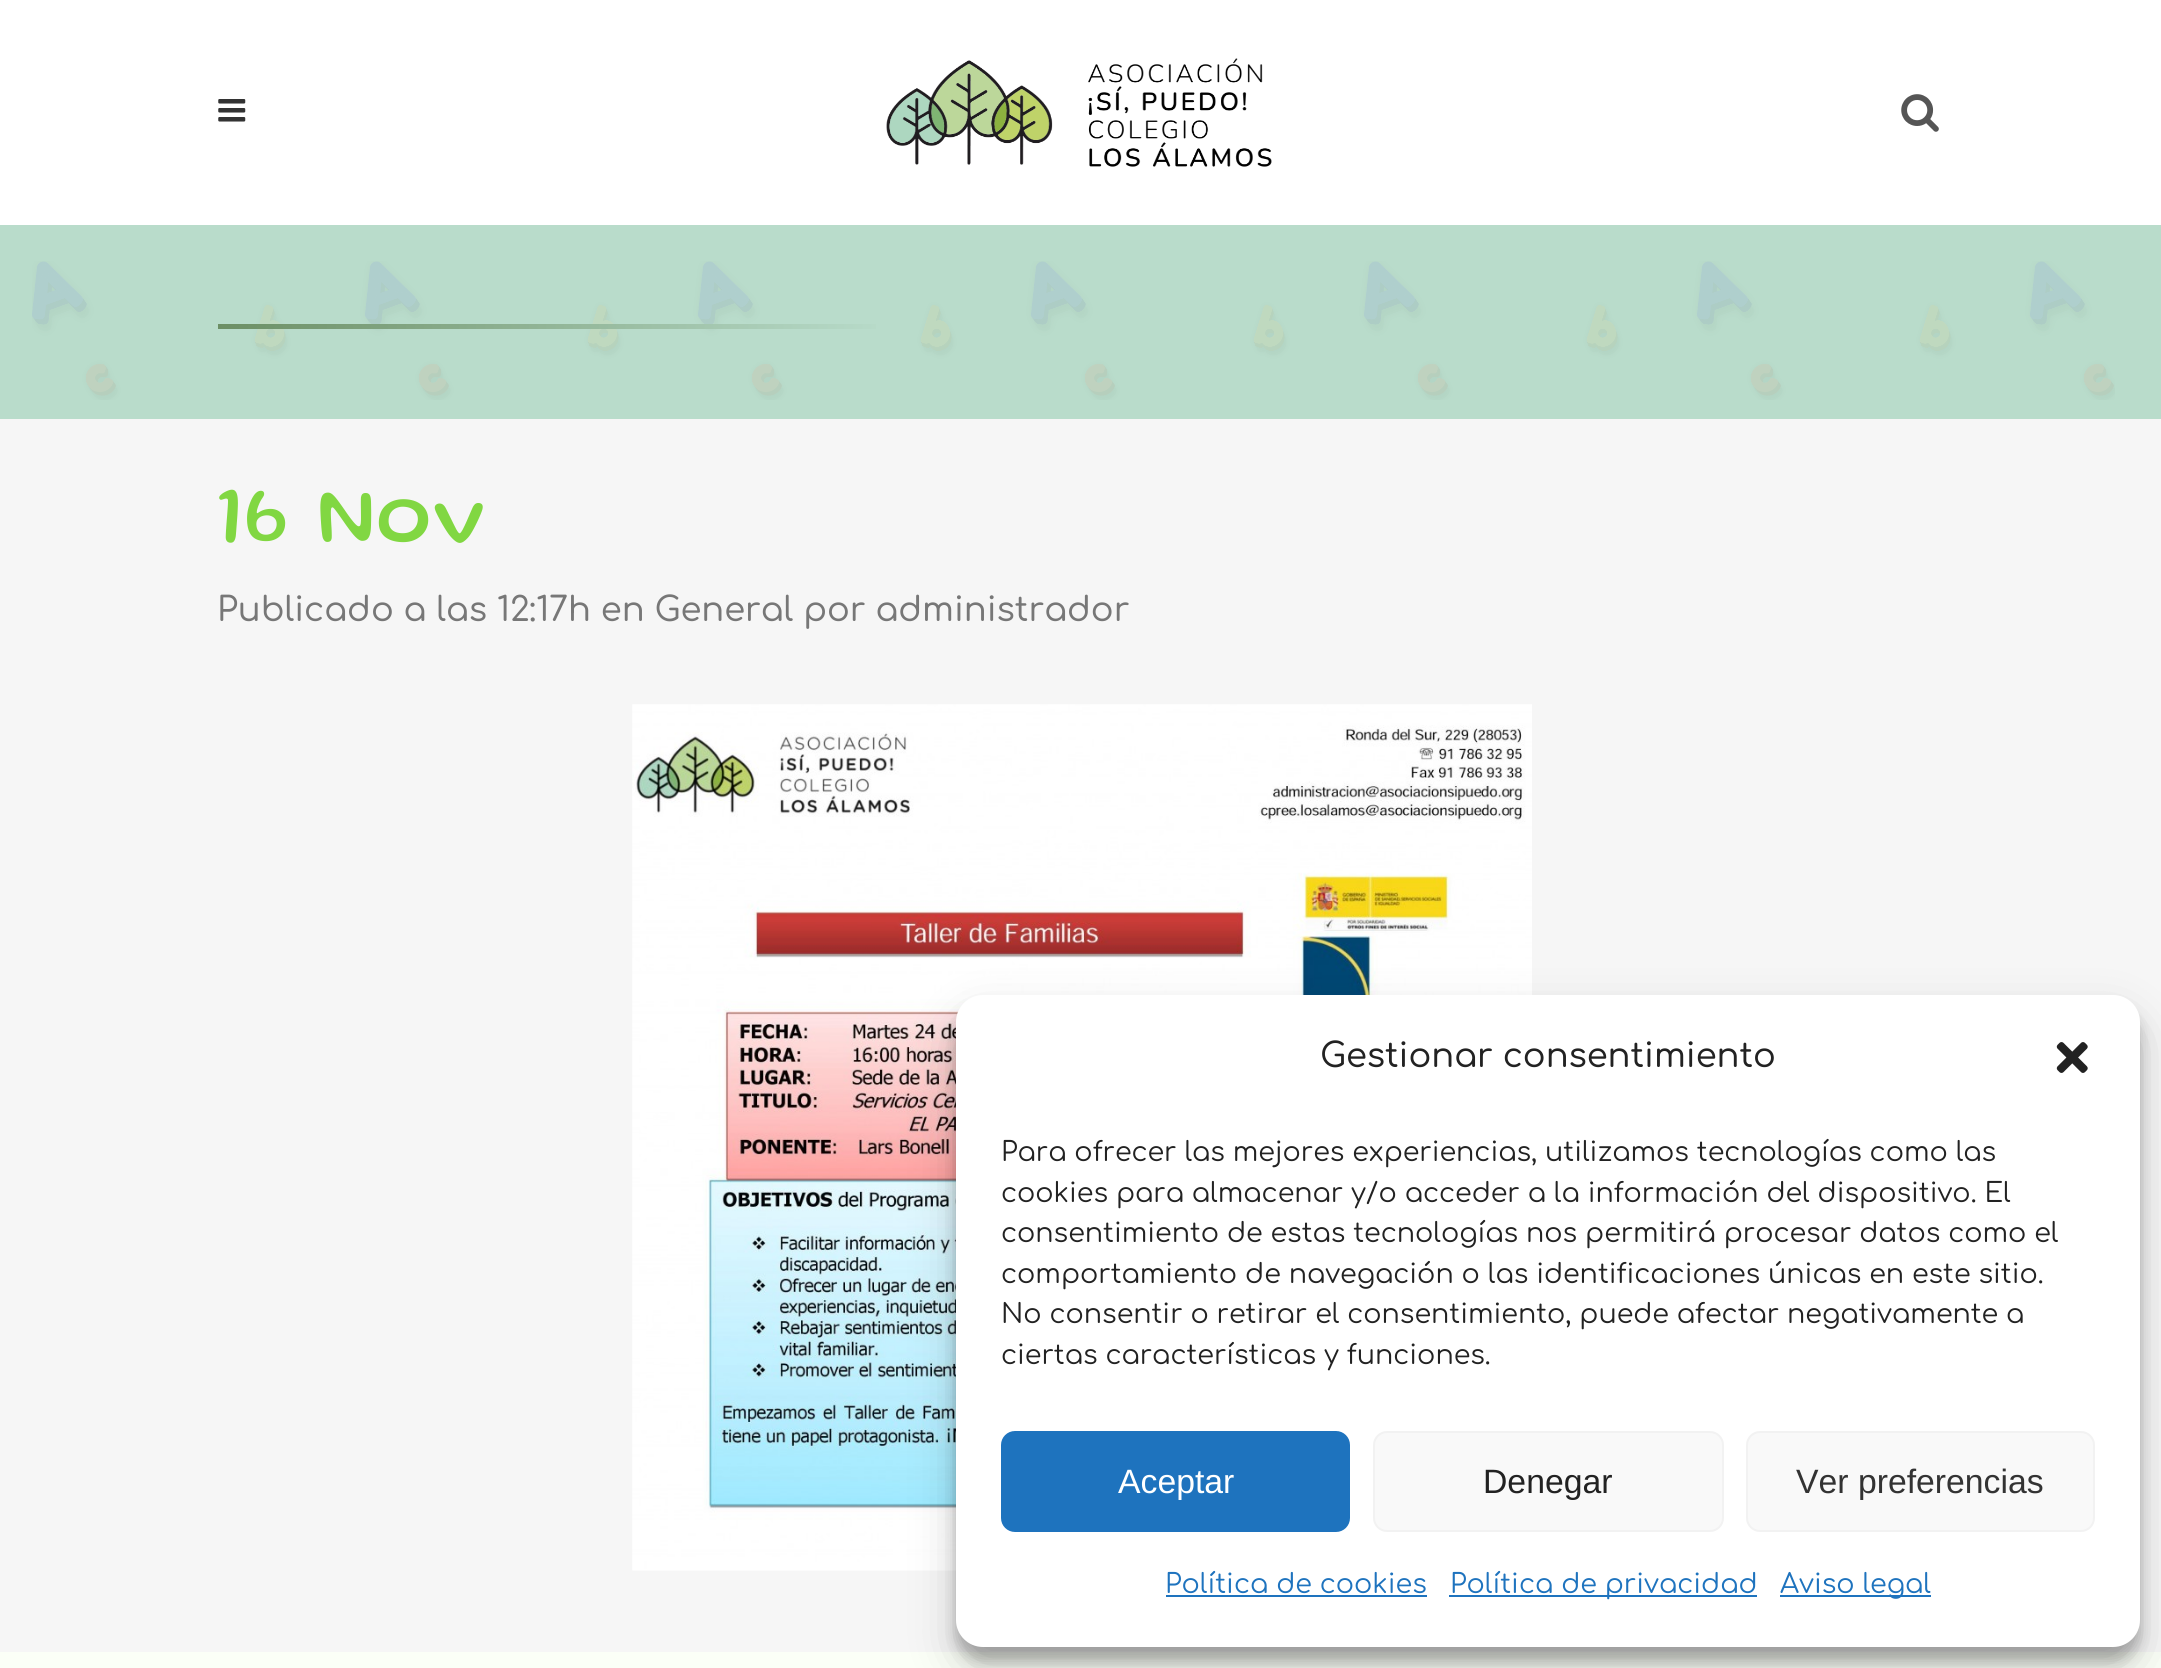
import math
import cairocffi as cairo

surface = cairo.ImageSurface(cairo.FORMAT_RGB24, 2161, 1668)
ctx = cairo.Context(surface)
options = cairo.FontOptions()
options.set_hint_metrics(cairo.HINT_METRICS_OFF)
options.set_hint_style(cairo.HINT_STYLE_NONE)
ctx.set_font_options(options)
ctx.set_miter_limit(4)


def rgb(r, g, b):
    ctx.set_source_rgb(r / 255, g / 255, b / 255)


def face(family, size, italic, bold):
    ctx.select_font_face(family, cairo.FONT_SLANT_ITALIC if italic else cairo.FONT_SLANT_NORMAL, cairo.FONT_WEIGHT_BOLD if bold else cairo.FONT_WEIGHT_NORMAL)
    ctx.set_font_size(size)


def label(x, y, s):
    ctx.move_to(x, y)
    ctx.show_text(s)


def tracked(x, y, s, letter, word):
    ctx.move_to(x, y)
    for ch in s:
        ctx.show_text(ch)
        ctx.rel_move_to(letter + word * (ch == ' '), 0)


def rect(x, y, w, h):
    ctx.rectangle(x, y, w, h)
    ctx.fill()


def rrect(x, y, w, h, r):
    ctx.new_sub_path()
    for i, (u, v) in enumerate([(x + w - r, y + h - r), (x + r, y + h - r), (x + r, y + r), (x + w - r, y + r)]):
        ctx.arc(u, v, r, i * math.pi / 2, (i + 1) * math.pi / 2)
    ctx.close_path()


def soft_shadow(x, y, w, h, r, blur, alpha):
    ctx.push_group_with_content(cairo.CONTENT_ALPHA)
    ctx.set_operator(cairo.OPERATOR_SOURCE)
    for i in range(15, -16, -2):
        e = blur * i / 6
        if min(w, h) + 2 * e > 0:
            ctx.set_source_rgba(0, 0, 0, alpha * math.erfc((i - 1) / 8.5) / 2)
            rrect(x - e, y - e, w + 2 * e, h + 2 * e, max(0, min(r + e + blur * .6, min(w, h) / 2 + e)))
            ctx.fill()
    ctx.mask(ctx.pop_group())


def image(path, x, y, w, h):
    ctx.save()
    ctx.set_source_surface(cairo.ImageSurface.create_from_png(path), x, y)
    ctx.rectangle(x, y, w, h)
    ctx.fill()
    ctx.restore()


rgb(246, 246, 246)
ctx.paint()
rgb(255, 255, 255)
rect(0, 0, 2161, 225)
image('image0.png', 218, 99, 28, 23)
image('image1.png', 886, 58, 386, 109)
image('image2.png', 1901, 94, 38, 38)
rgb(185, 220, 203)
rect(0, 225, 2161, 194)
image('image3.png', 32, 261, 2083, 139)
gradient = cairo.LinearGradient(218, 326, 893, 326)
gradient.add_color_stop_rgba(0, 0.424, 0.561, 0.396, 1)
gradient.add_color_stop_rgba(1, 0.725, 0.863, 0.796, 1)
ctx.set_source(gradient)
rect(218, 324, 658, 5)
face('Gluten', 81, 0, 0)
rgb(129, 215, 66)
tracked(217, 540, '16 Nov', 2.25, 0)
face('Comfortaa Medium', 33.75, 0, 0)
rgb(119, 119, 119)
label(217, 621, 'Publicado a las 12:17h en General por administrador')
image('image4.png', 632, 704, 900, 867)
rgb(251, 255, 247)
rect(0, 1652, 2161, 16)
rgb(0, 0, 0)
soft_shadow(956, 1008, 1184, 653, 27, 7, 0.23)
soft_shadow(956, 1017, 1184, 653, 27, 22.5, 0.19)
rgb(255, 255, 255)
rrect(956, 995, 1184, 652, 27)
ctx.fill()
rgb(34, 34, 34)
label(1320, 1067, 'Gestionar consentimiento')
image('image5.png', 2056, 1042, 32, 31)
face('Comfortaa', 27, 0, 0)
label(1001, 1161, 'Para ofrecer las mejores experiencias, utilizamos tecnologías como las')
label(1001, 1202, 'cookies para almacenar y/o acceder a la información del dispositivo. El')
label(1001, 1242, 'consentimiento de estas tecnologías nos permitirá procesar datos como el')
label(1001, 1283, 'comportamiento de navegación o las identificaciones únicas en este sitio.')
label(1001, 1323, 'No consentir o retirar el consentimiento, puede afectar negativamente a')
label(1001, 1364, 'ciertas características y funciones.')
rgb(30, 115, 190)
rrect(1002, 1432, 347, 99, 13)
ctx.fill_preserve()
ctx.stroke()
face('Liberation Sans', 33.75, 0, 0)
rgb(255, 255, 255)
label(1118, 1493, 'Aceptar')
rgb(249, 249, 249)
rrect(1374, 1432, 349, 99, 13)
ctx.fill_preserve()
rgb(242, 242, 242)
ctx.stroke()
rgb(34, 34, 34)
label(1483, 1493, 'Denegar')
rgb(249, 249, 249)
rrect(1747, 1432, 347, 99, 13)
ctx.fill_preserve()
rgb(242, 242, 242)
ctx.stroke()
rgb(51, 51, 51)
label(1796, 1493, 'Ver preferencias')
face('Comfortaa', 27, 0, 0)
rgb(30, 115, 190)
label(1165, 1593, 'Política de cookies')
rect(1166, 1595, 261, 2)
rect(1449, 1595, 308, 2)
label(1450, 1593, 'Política de privacidad')
rect(1780, 1595, 151, 2)
label(1780, 1593, 'Aviso legal')
surface.write_to_png('render.png')
